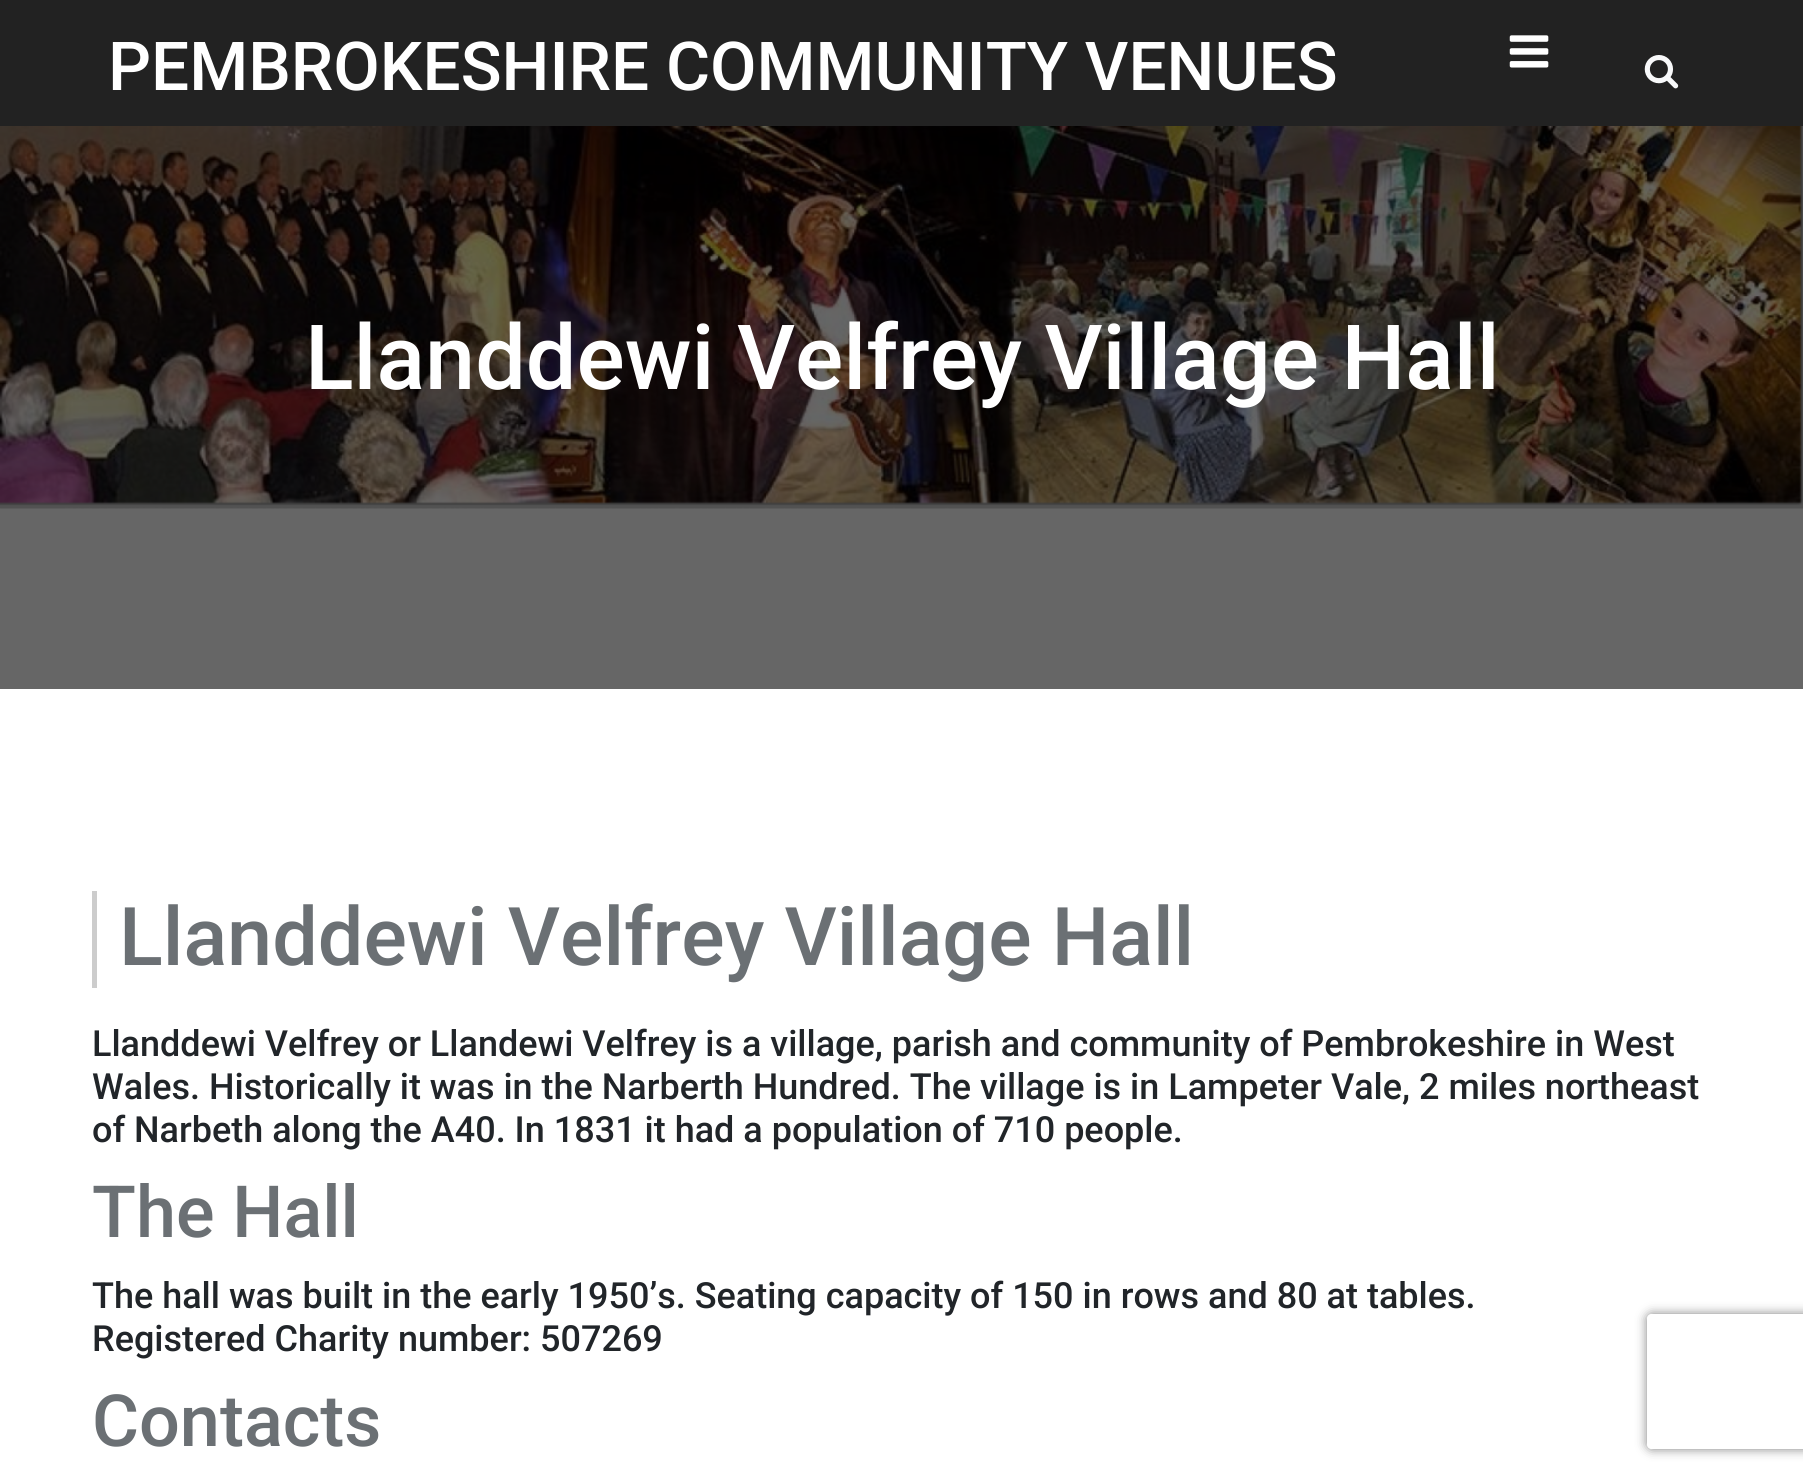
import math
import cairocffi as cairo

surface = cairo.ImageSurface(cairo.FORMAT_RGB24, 1803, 1480)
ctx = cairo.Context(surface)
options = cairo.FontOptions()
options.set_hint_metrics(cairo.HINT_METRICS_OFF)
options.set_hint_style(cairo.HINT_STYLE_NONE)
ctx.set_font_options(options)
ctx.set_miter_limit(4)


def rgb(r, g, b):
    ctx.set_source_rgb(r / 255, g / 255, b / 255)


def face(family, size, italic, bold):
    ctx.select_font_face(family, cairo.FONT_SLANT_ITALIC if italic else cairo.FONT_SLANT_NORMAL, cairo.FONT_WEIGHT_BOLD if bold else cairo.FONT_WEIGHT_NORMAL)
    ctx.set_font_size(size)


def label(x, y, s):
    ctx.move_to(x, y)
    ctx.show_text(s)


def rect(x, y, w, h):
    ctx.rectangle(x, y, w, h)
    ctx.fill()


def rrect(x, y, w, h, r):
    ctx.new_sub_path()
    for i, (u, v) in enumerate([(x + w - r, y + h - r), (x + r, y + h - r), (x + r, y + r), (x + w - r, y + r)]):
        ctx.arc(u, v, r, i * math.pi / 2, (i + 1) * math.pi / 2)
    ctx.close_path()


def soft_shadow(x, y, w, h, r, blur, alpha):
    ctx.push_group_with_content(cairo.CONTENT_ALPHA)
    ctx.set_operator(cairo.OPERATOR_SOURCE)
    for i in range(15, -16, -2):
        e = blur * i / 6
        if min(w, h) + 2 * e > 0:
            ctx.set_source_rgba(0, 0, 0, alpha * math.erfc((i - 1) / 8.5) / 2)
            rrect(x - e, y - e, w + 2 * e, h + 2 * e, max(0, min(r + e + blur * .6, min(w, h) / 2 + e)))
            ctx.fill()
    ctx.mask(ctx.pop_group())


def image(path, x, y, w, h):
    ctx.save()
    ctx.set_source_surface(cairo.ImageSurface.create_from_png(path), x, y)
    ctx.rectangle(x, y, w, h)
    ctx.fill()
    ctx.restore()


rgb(255, 255, 255)
ctx.paint()
rgb(102, 102, 102)
rect(0, 508, 1803, 181)
rgb(34, 34, 34)
rect(0, 0, 1803, 126)
face('Roboto Medium', 67.5, 0, 0)
rgb(255, 255, 255)
label(108, 90, 'PEMBROKESHIRE COMMUNITY VENUES')
image('image0.png', 1509, 35, 40, 33)
image('image1.png', 1644, 55, 35, 34)
image('image2.png', 0, 126, 1803, 383)
face('Roboto Medium', 90, 0, 0)
label(305, 389, 'Llanddewi Velfrey Village Hall')
rgb(204, 204, 204)
rect(92, 891, 5, 97)
face('Roboto Medium', 81, 0, 0)
rgb(107, 112, 116)
label(119, 965, 'Llanddewi Velfrey Village Hall')
face('Roboto Medium', 36, 0, 0)
rgb(33, 37, 41)
label(92, 1056, 'Llanddewi Velfrey or Llandewi Velfrey is a village, parish and community of Pembrokeshire in West')
label(92, 1099, 'Wales. Historically it was in the Narberth Hundred. The village is in Lampeter Vale, 2 miles northeast')
label(92, 1142, 'of Narbeth along the A40. In 1831 it had a population of 710 people.')
face('Roboto Medium', 72, 0, 0)
rgb(107, 112, 116)
label(92, 1237, 'The Hall')
face('Roboto Medium', 36, 0, 0)
rgb(33, 37, 41)
label(92, 1308, 'The hall was built in the early 1950’s. Seating capacity of 150 in rows and 80 at tables.')
label(92, 1351, 'Registered Charity number: 507269')
face('Roboto Medium', 72, 0, 0)
rgb(107, 112, 116)
label(92, 1446, 'Contacts')
ctx.save()
ctx.set_fill_rule(cairo.FILL_RULE_EVEN_ODD)
ctx.new_path()
ctx.move_to(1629, 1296)
ctx.line_to(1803, 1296)
ctx.line_to(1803, 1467)
ctx.line_to(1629, 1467)
ctx.close_path()
ctx.move_to(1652, 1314)
ctx.line_to(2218, 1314)
ctx.curve_to(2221, 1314, 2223, 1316, 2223, 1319)
ctx.line_to(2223, 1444)
ctx.curve_to(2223, 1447, 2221, 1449, 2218, 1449)
ctx.line_to(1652, 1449)
ctx.curve_to(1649, 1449, 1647, 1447, 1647, 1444)
ctx.line_to(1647, 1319)
ctx.curve_to(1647, 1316, 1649, 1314, 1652, 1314)
ctx.close_path()
ctx.clip()
rgb(128, 128, 128)
soft_shadow(1647, 1314, 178, 135, 5, 5.5, 1)
ctx.restore()
surface.write_to_png('render.png')
